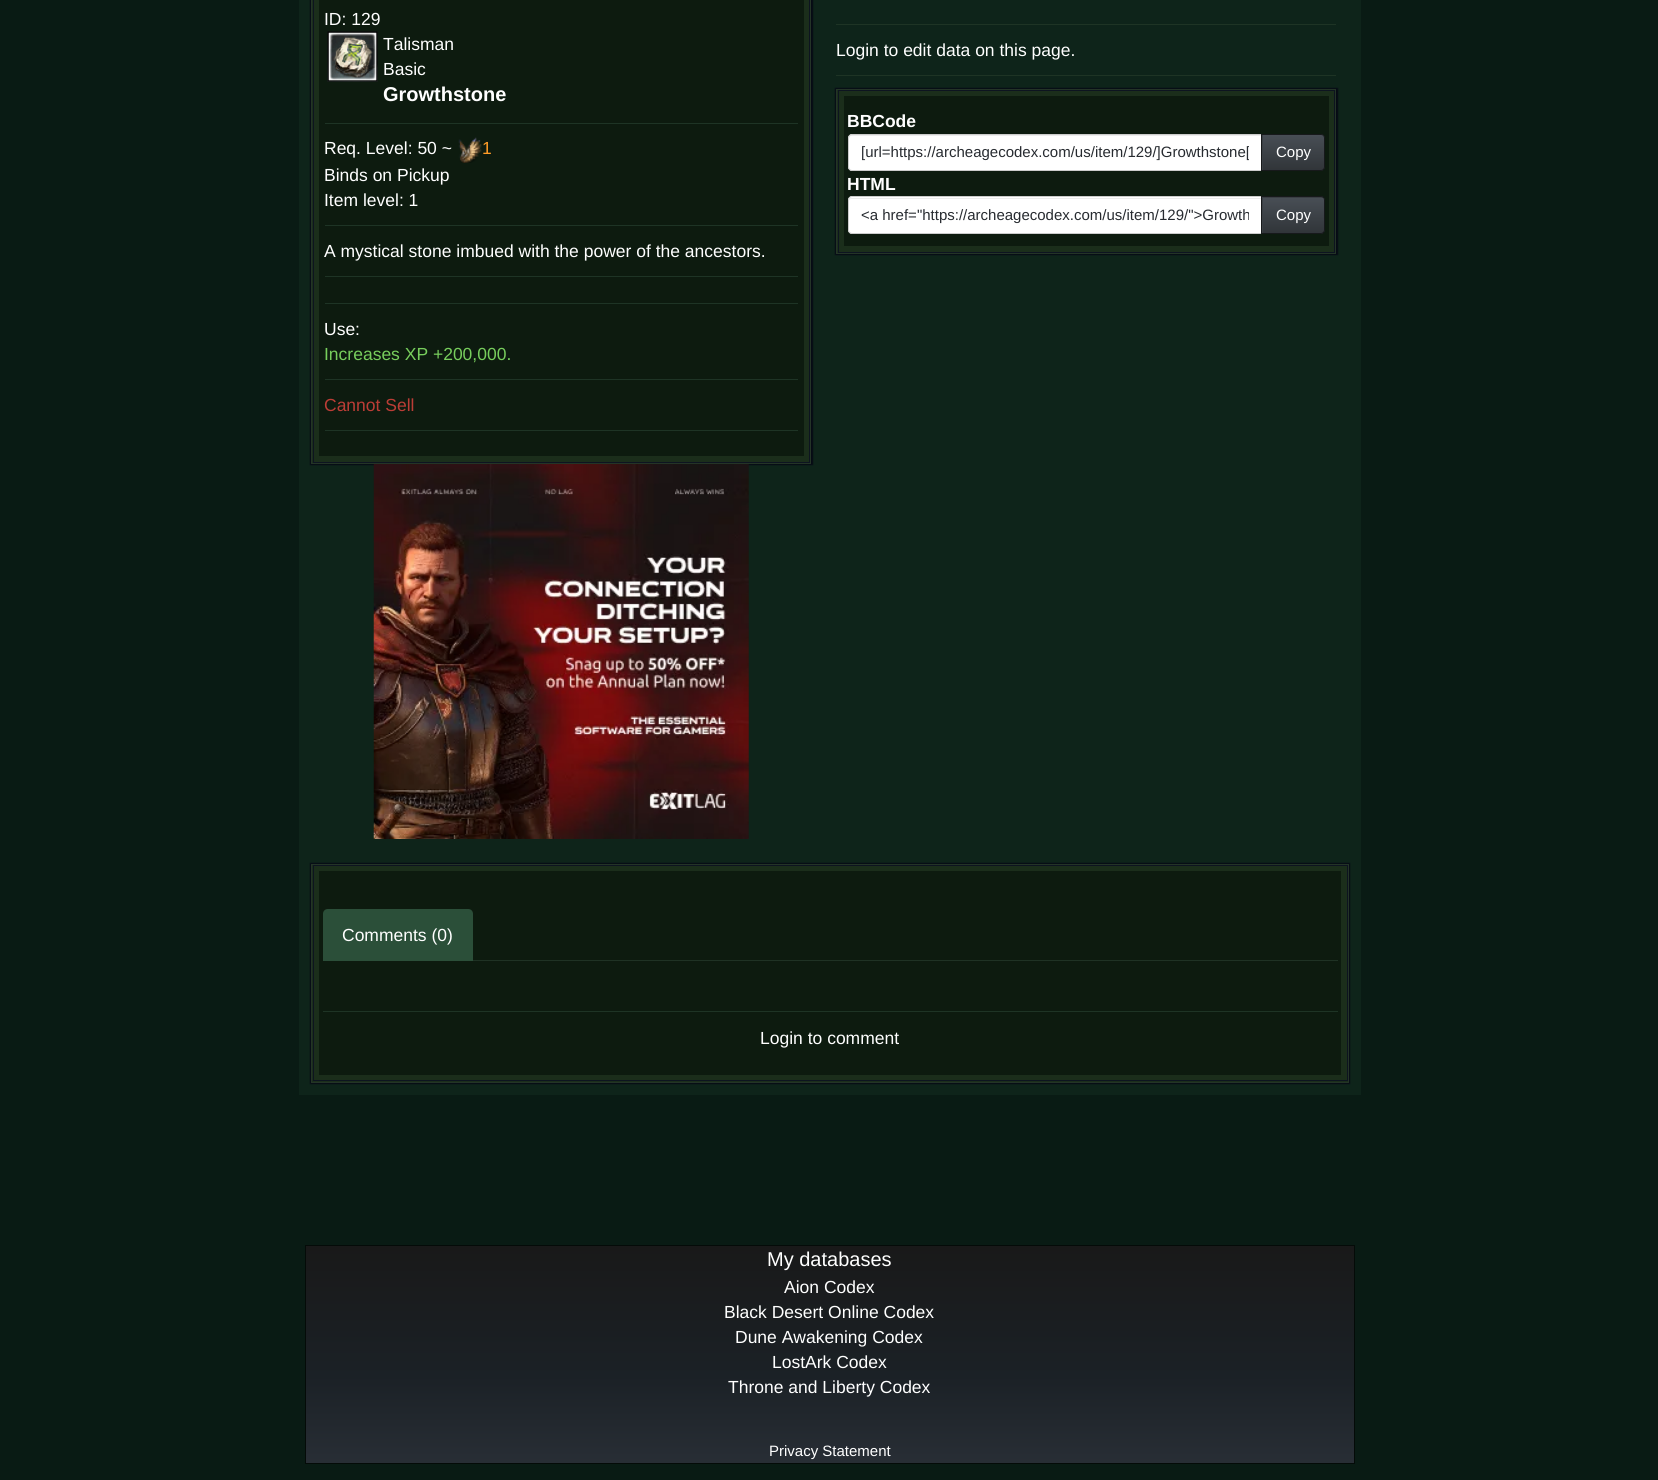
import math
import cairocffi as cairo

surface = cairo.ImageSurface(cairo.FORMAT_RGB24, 1658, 1480)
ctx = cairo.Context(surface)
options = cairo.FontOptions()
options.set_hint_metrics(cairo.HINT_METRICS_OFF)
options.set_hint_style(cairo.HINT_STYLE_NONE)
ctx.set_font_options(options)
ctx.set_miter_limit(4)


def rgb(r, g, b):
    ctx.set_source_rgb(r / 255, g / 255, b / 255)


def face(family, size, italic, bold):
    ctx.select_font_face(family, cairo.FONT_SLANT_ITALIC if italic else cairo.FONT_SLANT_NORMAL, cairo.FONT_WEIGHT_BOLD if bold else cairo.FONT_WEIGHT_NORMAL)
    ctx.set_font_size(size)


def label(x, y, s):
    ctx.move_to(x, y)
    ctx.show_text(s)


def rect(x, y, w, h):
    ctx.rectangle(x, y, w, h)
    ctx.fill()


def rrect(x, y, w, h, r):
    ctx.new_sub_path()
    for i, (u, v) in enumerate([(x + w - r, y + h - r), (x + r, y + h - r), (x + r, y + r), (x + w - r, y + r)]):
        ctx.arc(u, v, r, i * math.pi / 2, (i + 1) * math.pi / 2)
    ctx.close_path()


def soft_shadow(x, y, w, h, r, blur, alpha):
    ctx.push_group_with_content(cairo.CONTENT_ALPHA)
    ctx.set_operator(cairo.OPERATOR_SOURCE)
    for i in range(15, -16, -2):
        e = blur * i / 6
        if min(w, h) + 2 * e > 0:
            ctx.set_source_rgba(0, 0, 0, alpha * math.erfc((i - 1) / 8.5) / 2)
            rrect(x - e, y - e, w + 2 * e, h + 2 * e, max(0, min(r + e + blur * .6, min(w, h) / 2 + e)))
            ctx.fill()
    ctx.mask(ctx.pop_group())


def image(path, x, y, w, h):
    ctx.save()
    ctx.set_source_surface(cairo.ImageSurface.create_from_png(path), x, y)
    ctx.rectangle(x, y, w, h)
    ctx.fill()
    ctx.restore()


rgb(9, 27, 20)
ctx.paint()
rgb(14, 36, 26)
rect(299, 0, 1062, 1095)
rgb(6, 11, 20)
soft_shadow(310, -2, 503, 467, 0, 0.5, 1)
rgb(27, 46, 27)
rect(312, 0, 497, 463)
ctx.rectangle(313.5, -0.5, 496, 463)
rgb(13, 20, 32)
ctx.set_line_width(1)
ctx.stroke()
ctx.rectangle(311.5, -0.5, 499, 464)
rgb(36, 52, 39)
ctx.stroke()
rgb(13, 27, 15)
rect(319, 0, 485, 456)
face('Liberation Sans', 17.5, 0, 0)
rgb(255, 255, 255)
label(324, 25, 'ID: 129')
image('image0.png', 327, 31, 51, 51)
image('image1.png', 327, 31, 51, 51)
label(383, 50, 'Talisman')
label(383, 75, 'Basic')
face('Liberation Sans', 20, 0, 1)
label(383, 101, 'Growthstone')
rgb(30, 52, 37)
rect(325, 123, 473, 1)
face('Liberation Sans', 17.5, 0, 0)
rgb(255, 255, 255)
label(324, 154, 'Req. Level: 50 ~')
image('image2.png', 458, 137, 24, 26)
rgb(255, 156, 39)
label(482, 154, '1')
rgb(255, 255, 255)
label(324, 181, 'Binds on Pickup')
label(324, 206, 'Item level: 1')
rgb(30, 52, 37)
rect(325, 225, 473, 1)
rgb(255, 255, 255)
label(324, 257, 'A mystical stone imbued with the power of the ancestors.')
rgb(30, 52, 37)
rect(325, 276, 473, 1)
rect(325, 303, 473, 1)
rgb(255, 255, 255)
label(324, 335, 'Use:')
rgb(119, 206, 92)
label(324, 360, 'Increases XP +200,000.')
rgb(30, 52, 37)
rect(325, 379, 473, 1)
rgb(188, 61, 54)
label(324, 411, 'Cannot Sell')
rgb(30, 52, 37)
rect(325, 430, 473, 1)
rect(836, 24, 500, 1)
rgb(255, 255, 255)
label(836, 56, 'Login to edit data on this page.')
rgb(30, 52, 37)
rect(836, 75, 500, 1)
rgb(6, 11, 20)
soft_shadow(835, 88, 503, 167, 0, 0.5, 1)
rgb(27, 46, 27)
rect(837, 90, 497, 163)
ctx.rectangle(838.5, 90.5, 496, 162)
rgb(13, 20, 32)
ctx.stroke()
ctx.rectangle(836.5, 89.5, 499, 164)
rgb(36, 52, 39)
ctx.stroke()
rgb(13, 27, 15)
rect(844, 96, 485, 150)
face('Liberation Sans', 17.5, 0, 1)
rgb(255, 255, 255)
label(847, 127, 'BBCode')
ctx.new_path()
ctx.move_to(852, 134)
ctx.line_to(1263, 134)
ctx.line_to(1263, 171)
ctx.line_to(852, 171)
ctx.curve_to(850, 171, 848, 169, 848, 167)
ctx.line_to(848, 138)
ctx.curve_to(848, 136, 850, 134, 852, 134)
ctx.close_path()
ctx.fill()
rgb(236, 236, 236)
ctx.new_path()
ctx.move_to(851, 136)
ctx.line_to(1261, 136)
ctx.line_to(1261, 135)
ctx.line_to(851, 135)
ctx.line_to(849, 136)
ctx.line_to(849, 139)
ctx.curve_to(849, 137, 850, 136, 851, 136)
ctx.close_path()
ctx.fill()
ctx.new_path()
ctx.move_to(852, 134.5)
ctx.line_to(1262.5, 134.5)
ctx.line_to(1262.5, 170.5)
ctx.line_to(852, 170.5)
ctx.curve_to(850, 170.5, 848.5, 169, 848.5, 167)
ctx.line_to(848.5, 138)
ctx.curve_to(848.5, 136, 850, 134.5, 852, 134.5)
ctx.close_path()
rgb(204, 204, 204)
ctx.stroke()
ctx.save()
ctx.rectangle(861, 144, 388, 17)
ctx.clip()
face('Liberation Sans', 15, 0, 0)
rgb(39, 43, 48)
label(861, 157, '[url=https://archeagecodex.com/us/item/129/]Growthstone[')
ctx.restore()
rgb(58, 63, 68)
ctx.new_path()
ctx.move_to(1261, 134)
ctx.line_to(1321, 134)
ctx.curve_to(1323, 134, 1325, 136, 1325, 138)
ctx.line_to(1325, 167)
ctx.curve_to(1325, 169, 1323, 171, 1321, 171)
ctx.line_to(1261, 171)
ctx.close_path()
ctx.fill()
gradient = cairo.LinearGradient(1293, 135, 1293, 170)
gradient.add_color_stop_rgba(0, 0.282, 0.306, 0.333, 1)
gradient.add_color_stop_rgba(0.6, 0.227, 0.247, 0.267, 1)
gradient.add_color_stop_rgba(1, 0.192, 0.208, 0.224, 1)
ctx.set_source(gradient)
rect(1263, 135, 61, 35)
ctx.new_path()
ctx.move_to(1261.5, 134.5)
ctx.line_to(1321, 134.5)
ctx.curve_to(1323, 134.5, 1324.5, 136, 1324.5, 138)
ctx.line_to(1324.5, 167)
ctx.curve_to(1324.5, 169, 1323, 170.5, 1321, 170.5)
ctx.line_to(1261.5, 170.5)
ctx.close_path()
ctx.set_source_rgba(0, 0, 0, 0.6)
ctx.stroke()
face('Liberation Sans', 15, 0, 0)
rgb(255, 255, 255)
label(1276, 157, 'Copy')
face('Liberation Sans', 17.5, 0, 1)
label(847, 190, 'HTML')
ctx.new_path()
ctx.move_to(852, 196)
ctx.line_to(1263, 196)
ctx.line_to(1263, 234)
ctx.line_to(852, 234)
ctx.curve_to(850, 234, 848, 232, 848, 230)
ctx.line_to(848, 200)
ctx.curve_to(848, 198, 850, 196, 852, 196)
ctx.close_path()
ctx.fill()
rgb(236, 236, 236)
ctx.new_path()
ctx.move_to(851, 199)
ctx.line_to(1261, 199)
ctx.line_to(1261, 198)
ctx.line_to(852, 198)
ctx.curve_to(850, 198, 849, 199, 849, 200)
ctx.line_to(849, 201)
ctx.curve_to(849, 200, 850, 199, 851, 199)
ctx.close_path()
ctx.fill()
ctx.new_path()
ctx.move_to(852, 196.5)
ctx.line_to(1262.5, 196.5)
ctx.line_to(1262.5, 233.5)
ctx.line_to(852, 233.5)
ctx.curve_to(850, 233.5, 848.5, 232, 848.5, 230)
ctx.line_to(848.5, 200)
ctx.curve_to(848.5, 198, 850, 196.5, 852, 196.5)
ctx.close_path()
rgb(204, 204, 204)
ctx.stroke()
ctx.save()
ctx.rectangle(861, 206, 388, 18)
ctx.clip()
face('Liberation Sans', 15, 0, 0)
rgb(39, 43, 48)
label(861, 220, '<a href="https://archeagecodex.com/us/item/129/">Growth')
ctx.restore()
rgb(58, 63, 68)
ctx.new_path()
ctx.move_to(1261, 196)
ctx.line_to(1321, 196)
ctx.curve_to(1323, 196, 1325, 198, 1325, 200)
ctx.line_to(1325, 230)
ctx.curve_to(1325, 232, 1323, 234, 1321, 234)
ctx.line_to(1261, 234)
ctx.close_path()
ctx.fill()
gradient = cairo.LinearGradient(1293, 198, 1293, 233)
gradient.add_color_stop_rgba(0, 0.282, 0.306, 0.333, 1)
gradient.add_color_stop_rgba(0.6, 0.227, 0.247, 0.267, 1)
gradient.add_color_stop_rgba(1, 0.192, 0.208, 0.224, 1)
ctx.set_source(gradient)
rect(1263, 198, 61, 35)
ctx.new_path()
ctx.move_to(1261.5, 196.5)
ctx.line_to(1321, 196.5)
ctx.curve_to(1323, 196.5, 1324.5, 198, 1324.5, 200)
ctx.line_to(1324.5, 230)
ctx.curve_to(1324.5, 232, 1323, 233.5, 1321, 233.5)
ctx.line_to(1261.5, 233.5)
ctx.close_path()
ctx.set_source_rgba(0, 0, 0, 0.6)
ctx.stroke()
face('Liberation Sans', 15, 0, 0)
rgb(255, 255, 255)
label(1276, 220, 'Copy')
image('image3.png', 373, 464, 376, 375)
rgb(6, 11, 20)
soft_shadow(310, 863, 1040, 221, 0, 0.5, 1)
rgb(27, 46, 27)
rect(312, 865, 1036, 217)
ctx.rectangle(313.5, 865.5, 1034, 215)
rgb(13, 20, 32)
ctx.stroke()
ctx.rectangle(311.5, 864.5, 1037, 218)
rgb(36, 52, 39)
ctx.stroke()
rgb(13, 27, 15)
rect(319, 871, 1022, 204)
rgb(31, 50, 36)
rect(473, 960, 865, 1)
rgb(43, 79, 57)
ctx.new_path()
ctx.move_to(328, 909)
ctx.line_to(468, 909)
ctx.curve_to(471, 909, 473, 911, 473, 914)
ctx.line_to(473, 961)
ctx.line_to(323, 961)
ctx.line_to(323, 914)
ctx.curve_to(323, 911, 325, 909, 328, 909)
ctx.close_path()
ctx.fill()
face('Liberation Sans', 17.5, 0, 0)
rgb(255, 255, 255)
label(342, 941, 'Comments (0)')
rgb(30, 52, 37)
rect(323, 1011, 1015, 1)
rgb(255, 255, 255)
label(760, 1044, 'Login to comment')
gradient = cairo.LinearGradient(830, 1246, 830, 1463)
gradient.add_color_stop_rgba(0, 0.098, 0.098, 0.098, 1)
gradient.add_color_stop_rgba(0.6, 0.106, 0.129, 0.149, 1)
gradient.add_color_stop_rgba(1, 0.157, 0.18, 0.208, 1)
ctx.set_source(gradient)
rect(306, 1246, 1048, 217)
ctx.rectangle(305.5, 1245.5, 1049, 218)
rgb(4, 11, 8)
ctx.stroke()
face('Liberation Sans', 20, 0, 0)
rgb(255, 255, 255)
label(767, 1266, 'My databases')
face('Liberation Sans', 17.5, 0, 0)
label(784, 1293, 'Aion Codex')
label(724, 1318, 'Black Desert Online Codex')
label(735, 1343, 'Dune Awakening Codex')
label(772, 1368, 'LostArk Codex')
label(728, 1393, 'Throne and Liberty Codex')
face('Liberation Sans', 15, 0, 0)
label(769, 1456, 'Privacy Statement')
surface.write_to_png('render.png')
